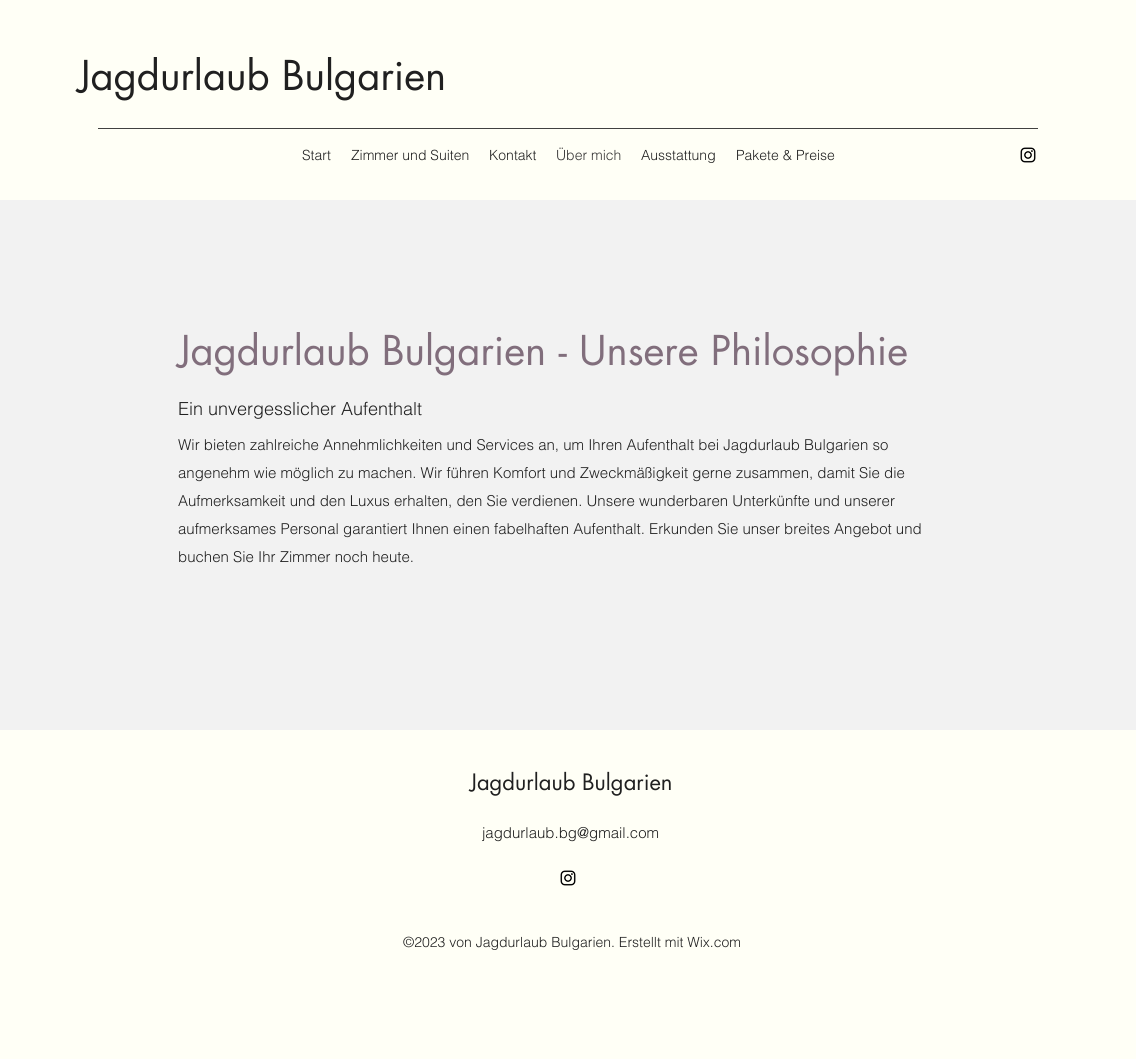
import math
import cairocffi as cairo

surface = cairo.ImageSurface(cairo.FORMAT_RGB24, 1136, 1059)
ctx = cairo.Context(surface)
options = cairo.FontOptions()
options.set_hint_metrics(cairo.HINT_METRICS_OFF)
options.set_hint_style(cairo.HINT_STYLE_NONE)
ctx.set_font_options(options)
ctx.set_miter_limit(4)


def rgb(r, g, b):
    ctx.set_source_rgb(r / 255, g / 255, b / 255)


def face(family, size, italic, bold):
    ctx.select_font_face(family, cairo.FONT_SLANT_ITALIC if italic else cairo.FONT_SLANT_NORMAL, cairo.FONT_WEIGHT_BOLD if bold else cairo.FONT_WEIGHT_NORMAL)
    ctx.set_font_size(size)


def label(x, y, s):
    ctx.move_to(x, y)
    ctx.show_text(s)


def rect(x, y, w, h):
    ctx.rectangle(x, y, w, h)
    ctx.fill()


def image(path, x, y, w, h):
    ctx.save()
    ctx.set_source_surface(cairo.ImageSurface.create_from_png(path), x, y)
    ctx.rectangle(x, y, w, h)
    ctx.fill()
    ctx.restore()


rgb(255, 255, 246)
ctx.paint()
face('futura', 40, 0, 0)
rgb(32, 32, 32)
label(78, 90, 'Jagdurlaub Bulgarien')
rgb(65, 65, 64)
rect(98, 128, 940, 1)
face('helvetica Light', 14, 0, 0)
rgb(32, 32, 32)
label(302, 160, 'Start')
label(351, 160, 'Zimmer und Suiten')
label(489, 160, 'Kontakt')
rgb(54, 53, 53)
label(556, 160, 'Über mich')
rgb(32, 32, 32)
label(641, 160, 'Ausstattung')
label(736, 160, 'Pakete & Preise')
image('image0.png', 1020, 147, 16, 16)
rgb(242, 242, 242)
rect(0, 200, 1136, 530)
face('futura', 40, 0, 0)
rgb(129, 110, 124)
label(178, 365, 'Jagdurlaub Bulgarien - Unsere Philosophie')
face('helvetica Light', 18, 0, 0)
rgb(32, 32, 32)
label(178, 415, 'Ein unvergesslicher Aufenthalt')
face('helvetica Light', 15, 0, 0)
label(178, 450, 'Wir bieten zahlreiche Annehmlichkeiten und Services an, um Ihren Aufenthalt bei Jagdurlaub Bulgarien so')
label(178, 478, 'angenehm wie möglich zu machen. Wir führen Komfort und Zweckmäßigkeit gerne zusammen, damit Sie die')
label(178, 506, 'Aufmerksamkeit und den Luxus erhalten, den Sie verdienen. Unsere wunderbaren Unterkünfte und unserer')
label(178, 534, 'aufmerksames Personal garantiert Ihnen einen fabelhaften Aufenthalt. Erkunden Sie unser breites Angebot und')
label(178, 562, 'buchen Sie Ihr Zimmer noch heute.')
face('futura', 22, 0, 0)
label(470, 790, 'Jagdurlaub Bulgarien')
face('helvetica Light', 15, 0, 0)
label(482, 838, 'jagdurlaub.bg@gmail.com')
image('image0.png', 560, 870, 16, 16)
face('helvetica Light', 14, 0, 0)
label(403, 947, '©2023 von Jagdurlaub Bulgarien. Erstellt mit Wix.com')
surface.write_to_png('render.png')
